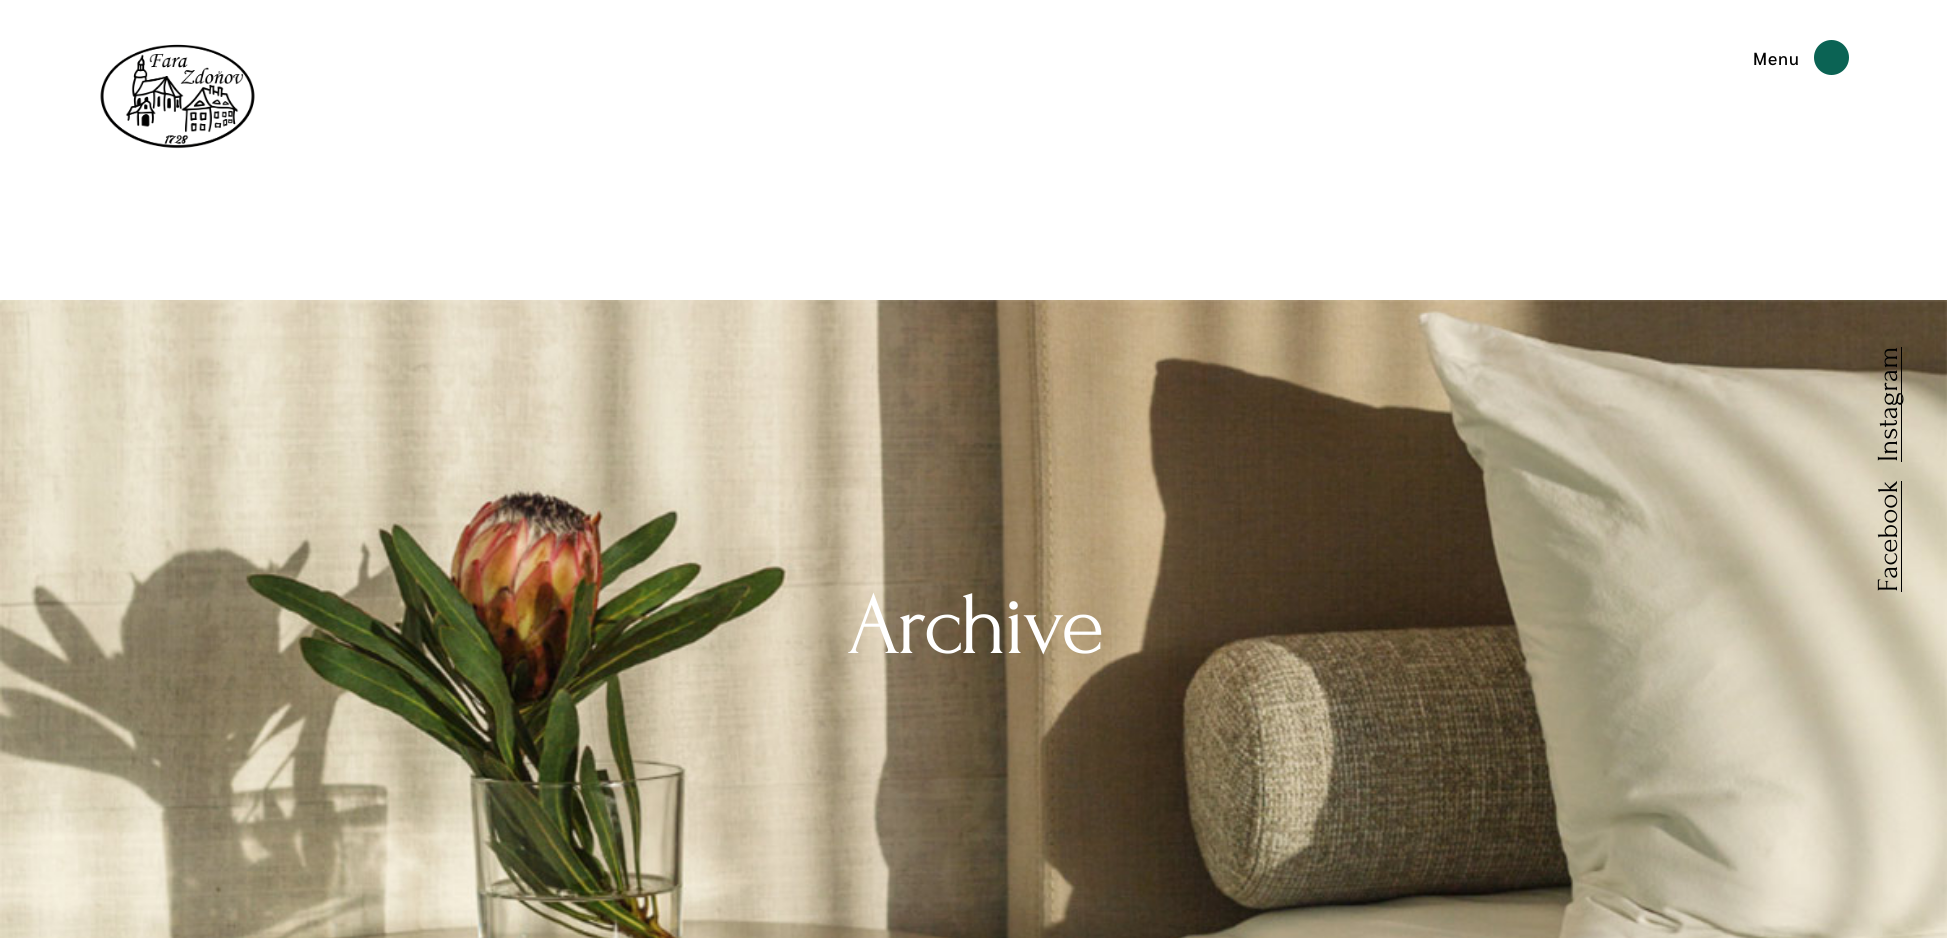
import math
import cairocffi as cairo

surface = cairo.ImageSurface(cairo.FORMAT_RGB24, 1947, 938)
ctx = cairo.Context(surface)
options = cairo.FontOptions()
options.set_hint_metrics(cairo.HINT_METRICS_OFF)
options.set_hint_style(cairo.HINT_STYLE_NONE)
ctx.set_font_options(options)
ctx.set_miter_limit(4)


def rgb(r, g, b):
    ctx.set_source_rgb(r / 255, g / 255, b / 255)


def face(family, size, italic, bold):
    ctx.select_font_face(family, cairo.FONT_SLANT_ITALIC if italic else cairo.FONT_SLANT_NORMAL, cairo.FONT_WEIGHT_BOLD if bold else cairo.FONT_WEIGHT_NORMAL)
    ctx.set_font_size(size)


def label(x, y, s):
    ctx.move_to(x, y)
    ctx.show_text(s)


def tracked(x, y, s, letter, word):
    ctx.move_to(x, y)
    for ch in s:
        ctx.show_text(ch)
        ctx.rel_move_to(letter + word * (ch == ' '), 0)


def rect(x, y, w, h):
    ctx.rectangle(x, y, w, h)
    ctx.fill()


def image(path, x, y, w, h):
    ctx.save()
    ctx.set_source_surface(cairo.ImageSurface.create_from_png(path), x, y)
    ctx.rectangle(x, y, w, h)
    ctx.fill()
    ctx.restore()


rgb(255, 255, 255)
ctx.paint()
image('image0.png', 100, 44, 155, 105)
face('Sarabun Medium', 17.5, 0, 0)
rgb(0, 0, 0)
tracked(1753, 65, 'Menu', 1, 0)
rgb(11, 99, 84)
ctx.new_path()
ctx.arc(1831.5, 57.5, 17.5, 0, 2 * math.pi)
ctx.fill()
image('image1.png', 0, 300, 1947, 638)
rgb(0, 0, 0)
rect(1901, 347, 1, 115)
face('Forum', 29, 0, 0)
ctx.save()
ctx.translate(1897, 462)
ctx.rotate(-90 * math.pi / 180)
label(0, 0, 'Instagram')
ctx.restore()
ctx.save()
ctx.translate(1897, 592)
ctx.rotate(-90 * math.pi / 180)
label(0, 0, 'Facebook')
ctx.restore()
rect(1901, 481, 1, 111)
face('Forum', 90, 0, 0)
rgb(255, 255, 255)
tracked(847, 653, 'Archive', -3.5, 0)
surface.write_to_png('render.png')
